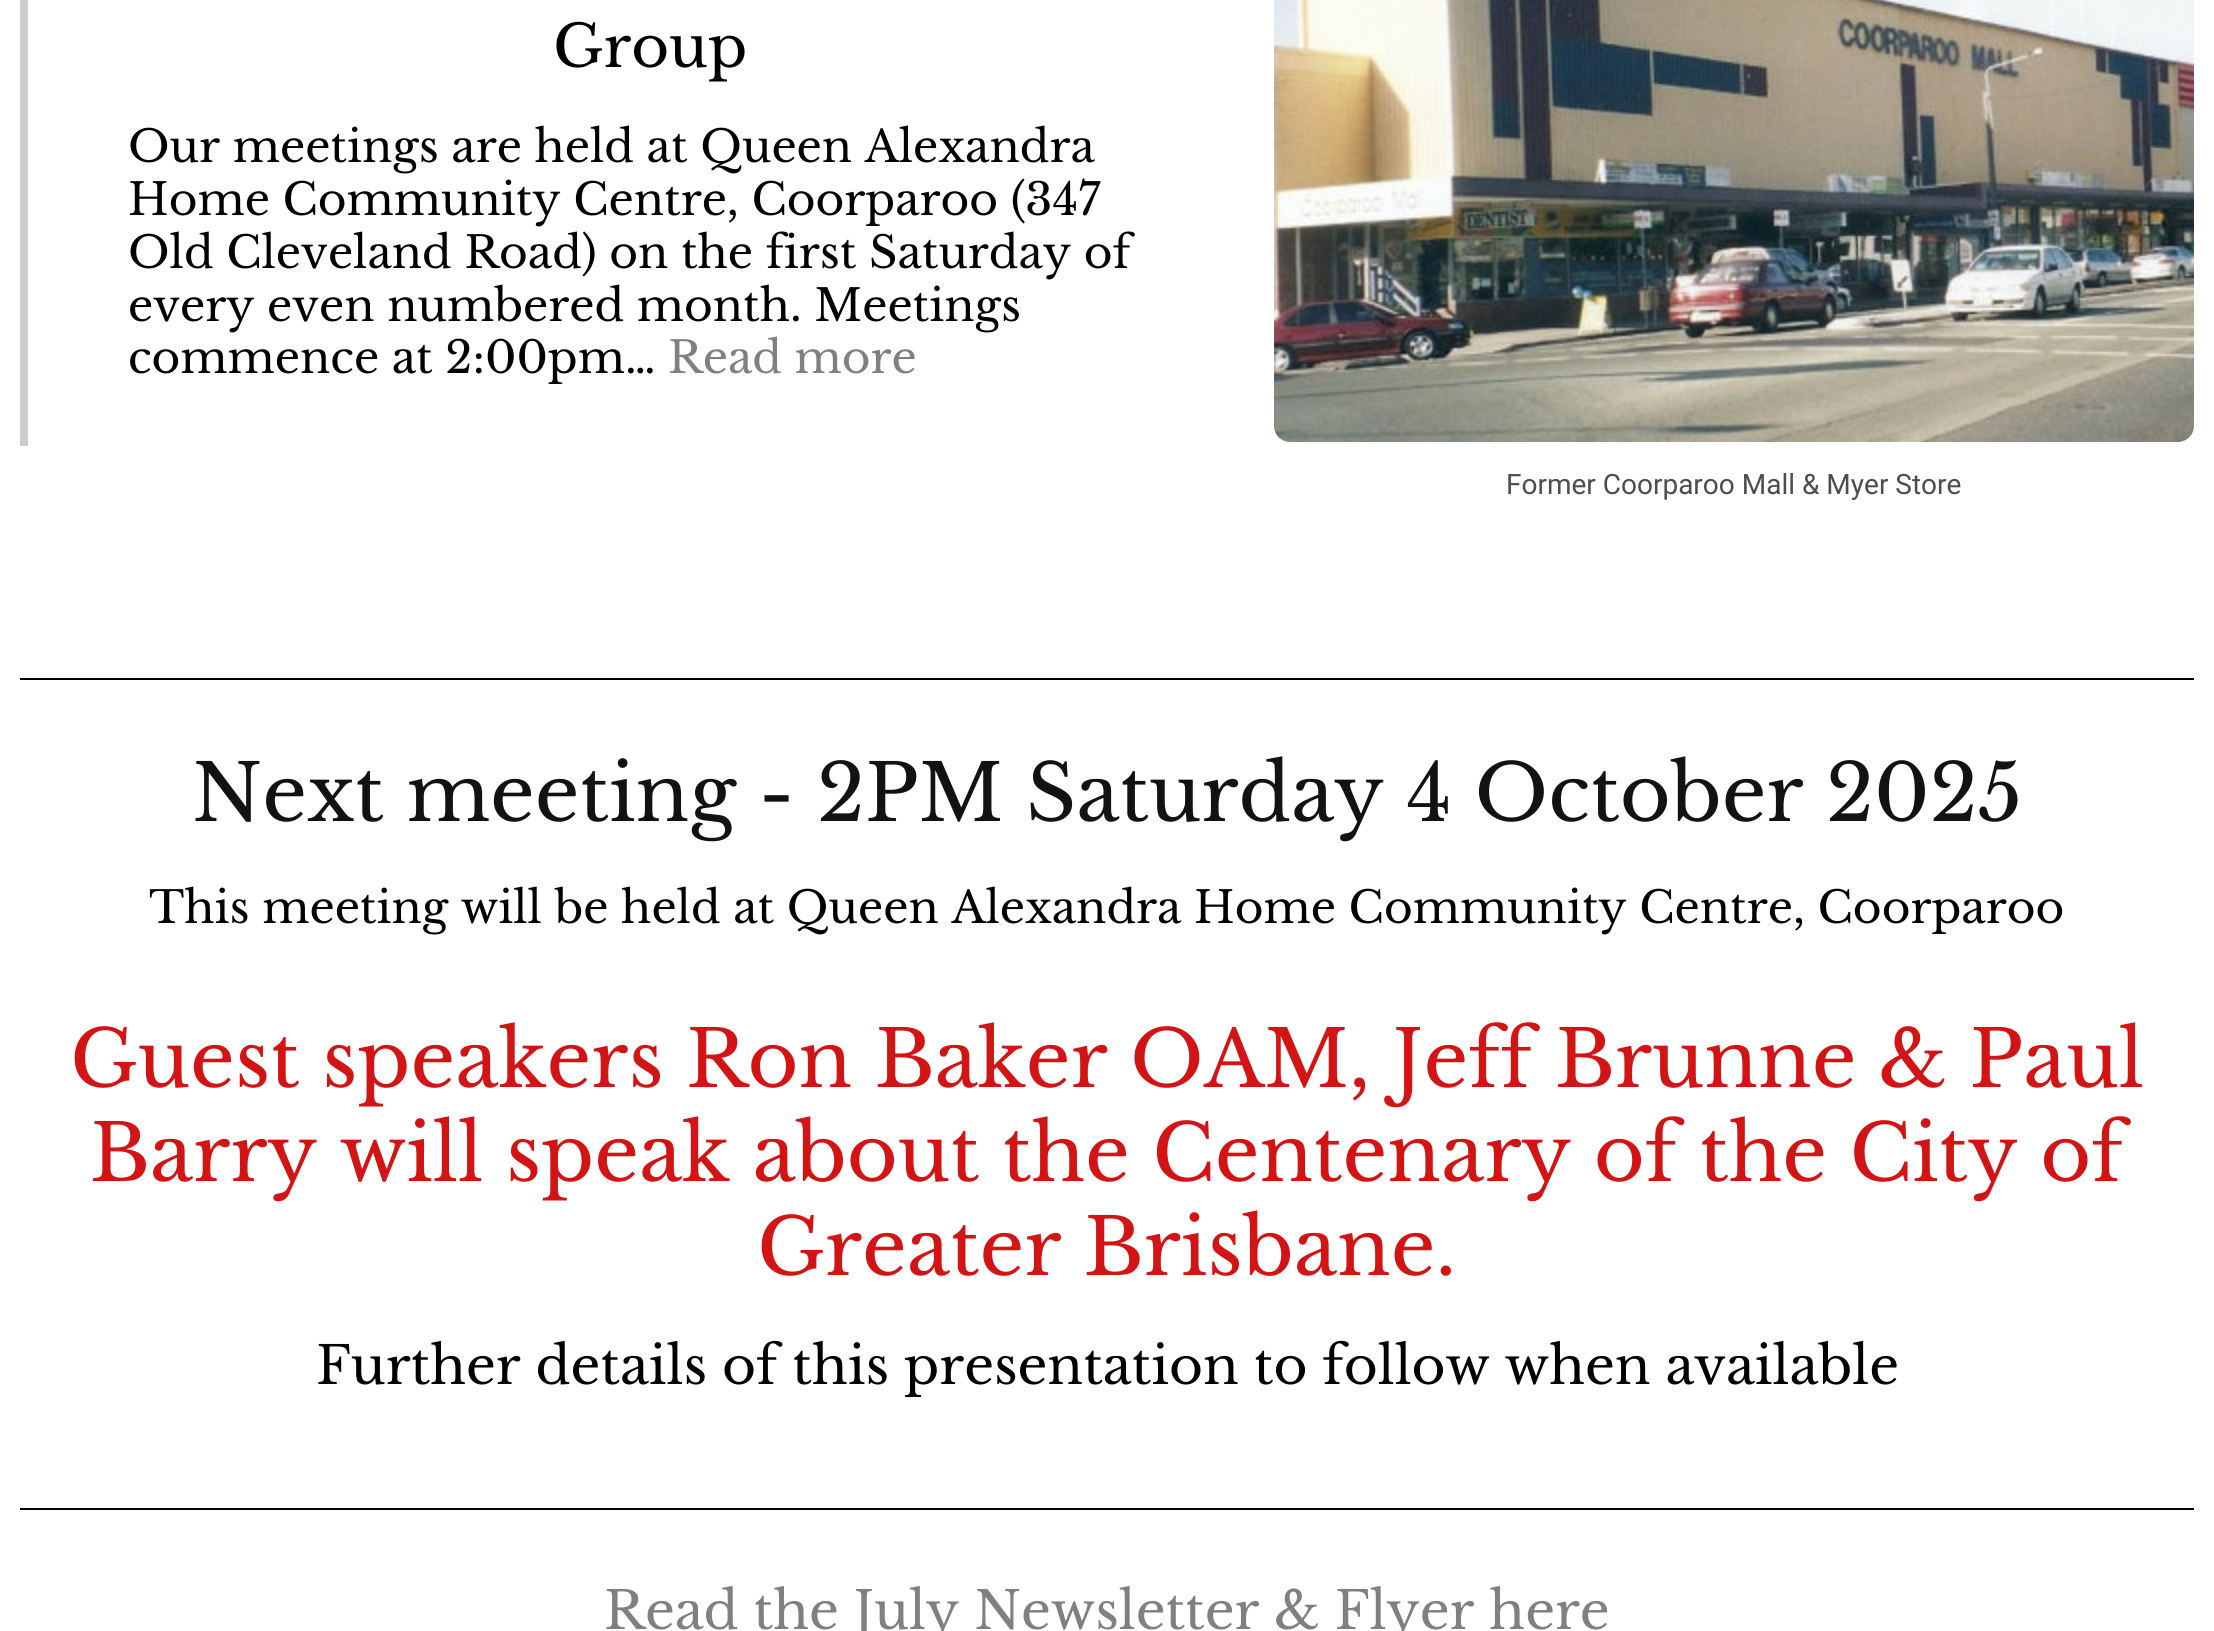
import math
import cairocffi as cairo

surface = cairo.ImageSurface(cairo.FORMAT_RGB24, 2214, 1631)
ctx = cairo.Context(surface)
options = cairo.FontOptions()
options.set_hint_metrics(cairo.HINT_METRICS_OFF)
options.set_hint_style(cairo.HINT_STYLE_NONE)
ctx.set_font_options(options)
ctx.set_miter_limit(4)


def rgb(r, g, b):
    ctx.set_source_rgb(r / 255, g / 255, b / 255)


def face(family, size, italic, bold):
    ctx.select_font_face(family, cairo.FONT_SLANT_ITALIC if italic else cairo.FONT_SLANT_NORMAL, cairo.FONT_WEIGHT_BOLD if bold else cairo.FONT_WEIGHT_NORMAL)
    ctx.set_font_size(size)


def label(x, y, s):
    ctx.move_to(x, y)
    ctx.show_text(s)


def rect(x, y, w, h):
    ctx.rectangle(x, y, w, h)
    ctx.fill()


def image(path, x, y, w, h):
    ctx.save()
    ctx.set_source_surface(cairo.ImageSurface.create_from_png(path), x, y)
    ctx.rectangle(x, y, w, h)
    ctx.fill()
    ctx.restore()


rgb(255, 255, 255)
ctx.paint()
rgb(204, 204, 204)
rect(20, 0, 8, 446)
face('Libre Baskerville', 58, 0, 0)
rgb(0, 0, 0)
label(553, 67, 'Group')
face('Libre Baskerville', 44, 0, 0)
label(128, 162, 'Our meetings are held at Queen Alexandra')
label(128, 215, 'Home Community Centre, Coorparoo (347')
label(128, 268, 'Old Cleveland Road) on the first Saturday of')
label(128, 321, 'every even numbered month. Meetings')
label(128, 373, 'commence at 2:00pm…')
rgb(128, 128, 128)
label(668, 373, 'Read more')
image('image0.png', 1274, 0, 920, 442)
face('Roboto', 28, 0, 0)
rgb(77, 77, 77)
label(1506, 494, 'Former Coorparoo Mall & Myer Store')
rgb(0, 0, 0)
rect(20, 678, 2174, 2)
face('Libre Baskerville', 78, 0, 0)
rgb(18, 18, 18)
label(192, 821, 'Next meeting - 2PM Saturday 4 October 2025')
face('Libre Baskerville', 44, 0, 0)
rgb(0, 0, 0)
label(149, 923, 'This meeting will be held at Queen Alexandra Home Community Centre, Coorparoo')
face('Libre Baskerville', 78, 0, 0)
rgb(210, 20, 20)
label(70, 1087, 'Guest speakers Ron Baker OAM, Jeff Brunne & Paul')
label(90, 1181, 'Barry will speak about the Centenary of the City of')
label(757, 1275, 'Greater Brisbane.')
face('Libre Baskerville', 52, 0, 0)
rgb(0, 0, 0)
label(316, 1384, 'Further details of this presentation to follow when available')
rect(20, 1508, 2174, 2)
rgb(128, 128, 128)
label(604, 1629, 'Read the July Newsletter & Flyer here')
surface.write_to_png('render.png')
